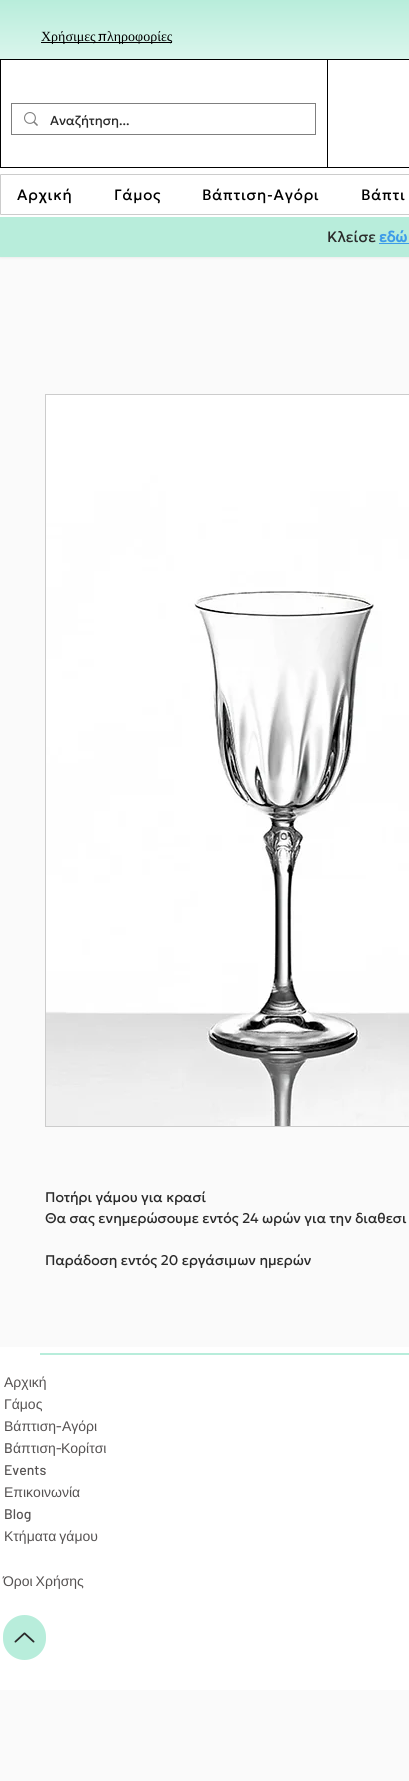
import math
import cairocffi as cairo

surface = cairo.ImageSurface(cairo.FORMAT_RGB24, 409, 1781)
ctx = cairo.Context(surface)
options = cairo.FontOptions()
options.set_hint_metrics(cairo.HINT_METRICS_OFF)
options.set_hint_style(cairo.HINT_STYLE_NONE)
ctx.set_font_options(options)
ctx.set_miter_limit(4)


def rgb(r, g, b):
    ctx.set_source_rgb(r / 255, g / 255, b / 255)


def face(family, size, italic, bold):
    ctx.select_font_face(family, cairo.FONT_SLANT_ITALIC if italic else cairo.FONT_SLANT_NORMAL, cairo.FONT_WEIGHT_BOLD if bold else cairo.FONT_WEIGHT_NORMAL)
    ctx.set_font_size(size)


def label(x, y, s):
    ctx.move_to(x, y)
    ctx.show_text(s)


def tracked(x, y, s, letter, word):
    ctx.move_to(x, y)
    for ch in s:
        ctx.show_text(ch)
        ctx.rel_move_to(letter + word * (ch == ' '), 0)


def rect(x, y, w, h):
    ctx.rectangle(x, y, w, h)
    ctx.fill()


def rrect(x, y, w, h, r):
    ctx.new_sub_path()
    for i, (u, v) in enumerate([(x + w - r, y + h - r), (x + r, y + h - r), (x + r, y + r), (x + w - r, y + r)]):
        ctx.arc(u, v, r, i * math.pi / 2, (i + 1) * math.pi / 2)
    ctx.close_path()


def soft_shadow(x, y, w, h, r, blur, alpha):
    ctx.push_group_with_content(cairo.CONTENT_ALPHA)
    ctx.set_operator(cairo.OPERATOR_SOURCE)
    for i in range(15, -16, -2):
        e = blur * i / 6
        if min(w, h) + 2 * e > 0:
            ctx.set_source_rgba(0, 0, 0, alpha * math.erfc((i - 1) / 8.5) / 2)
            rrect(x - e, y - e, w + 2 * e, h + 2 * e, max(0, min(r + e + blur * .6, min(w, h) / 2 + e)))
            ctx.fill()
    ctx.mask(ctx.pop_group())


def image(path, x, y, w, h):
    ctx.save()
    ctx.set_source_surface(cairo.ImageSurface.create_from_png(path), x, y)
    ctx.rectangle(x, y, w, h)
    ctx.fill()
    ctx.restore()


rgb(250, 250, 250)
ctx.paint()
rgb(0, 0, 0)
soft_shadow(0, 0, 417, 254, 0, 2.5, 0.5)
rgb(255, 255, 255)
rect(0, 200, 409, 17)
gradient = cairo.LinearGradient(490, 0, 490, 200)
gradient.add_color_stop_rgba(0, 0.722, 0.929, 0.859, 1)
gradient.add_color_stop_rgba(0.61, 1, 1, 1, 1)
ctx.set_source(gradient)
rect(0, 0, 409, 200)
rgb(0, 0, 0)
rect(41, 42, 131, 1)
face('Liberation Serif', 14, 0, 0)
label(41, 41, 'Χρήσιμες')
face('Lato', 14, 0, 0)
label(98, 41, 'π')
face('Liberation Serif', 14, 0, 0)
label(107, 41, 'ληροφορίες')
rect(0, 59, 409, 109)
rgb(255, 255, 255)
rect(1, 60, 326, 107)
ctx.rectangle(11.5, 103.5, 304, 31)
rgb(127, 127, 127)
ctx.set_line_width(1)
ctx.stroke()
image('image0.png', 24, 112, 14, 14)
face('Geologica', 13, 0, 0)
rgb(42, 42, 42)
label(50, 125, 'Αναζήτηση...')
rgb(255, 255, 255)
rect(328, 60, 81, 107)
rrect(0.5, 174.5, 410, 40, 0.5)
rgb(204, 204, 204)
ctx.stroke()
face('Geologica', 15, 0, 0)
rgb(0, 0, 0)
tracked(17, 200, 'Αρχική', 0.75, 0)
tracked(114, 200, 'Γάμος', 0.75, 0)
tracked(202, 200, 'Βάπτιση-Αγόρι', 0.75, 0)
tracked(361, 200, 'Bάπτι', 0.75, 0)
rgb(184, 237, 219)
rect(0, 217, 409, 40)
rgb(42, 42, 42)
label(327, 242, 'Κλείσε')
face('Geologica', 15, 0, 1)
rgb(61, 155, 233)
label(379, 242, 'εδώ')
rect(379, 243, 30, 1)
ctx.rectangle(45.5, 394.5, 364, 732)
rgb(204, 204, 204)
ctx.stroke()
image('image1.png', 46, 395, 363, 731)
face('Geologica', 14, 0, 0)
rgb(42, 42, 42)
label(45, 1202, 'Ποτήρι γάμου για κρασί')
label(45, 1223, 'Θα σας ενημερώσουμε εντός 24 ωρών για την διαθεσι')
label(45, 1265, 'Παράδοση εντός 20 εργάσιμων ημερών')
rgb(255, 255, 255)
rect(0, 1347, 409, 343)
rgb(184, 237, 219)
rect(40, 1353, 369, 2)
face('Liberation Sans', 14, 0, 0)
rgb(85, 82, 82)
label(4, 1387, 'Αρχική')
label(4, 1409, 'Γάμος')
label(4, 1431, 'Βάπτιση')
face('Barlow Medium', 14, 0, 0)
label(56, 1431, '-')
face('Liberation Sans', 14, 0, 0)
label(62, 1431, 'Αγόρι')
face('Barlow Medium', 14, 0, 0)
label(4, 1453, 'B')
face('Liberation Sans', 14, 0, 0)
label(13, 1453, 'άπτιση')
face('Barlow Medium', 14, 0, 0)
label(56, 1453, '-')
face('Liberation Sans', 14, 0, 0)
label(61, 1453, 'Κορίτσι')
face('Barlow Medium', 14, 0, 0)
label(4, 1475, 'Events')
face('Liberation Sans', 14, 0, 0)
label(4, 1497, 'Επικοινωνία')
face('Barlow Medium', 14, 0, 0)
label(4, 1519, 'Blog')
face('Liberation Sans', 14, 0, 0)
tracked(4, 1541, 'Κτήματα γάμου', 0, -1)
tracked(3, 1586, 'Όροι Χρήσης', 0, -1)
rgb(184, 237, 219)
rrect(3, 1615, 43, 45, 21.5)
ctx.fill()
image('image2.png', 14, 1632, 21, 11)
surface.write_to_png('render.png')
